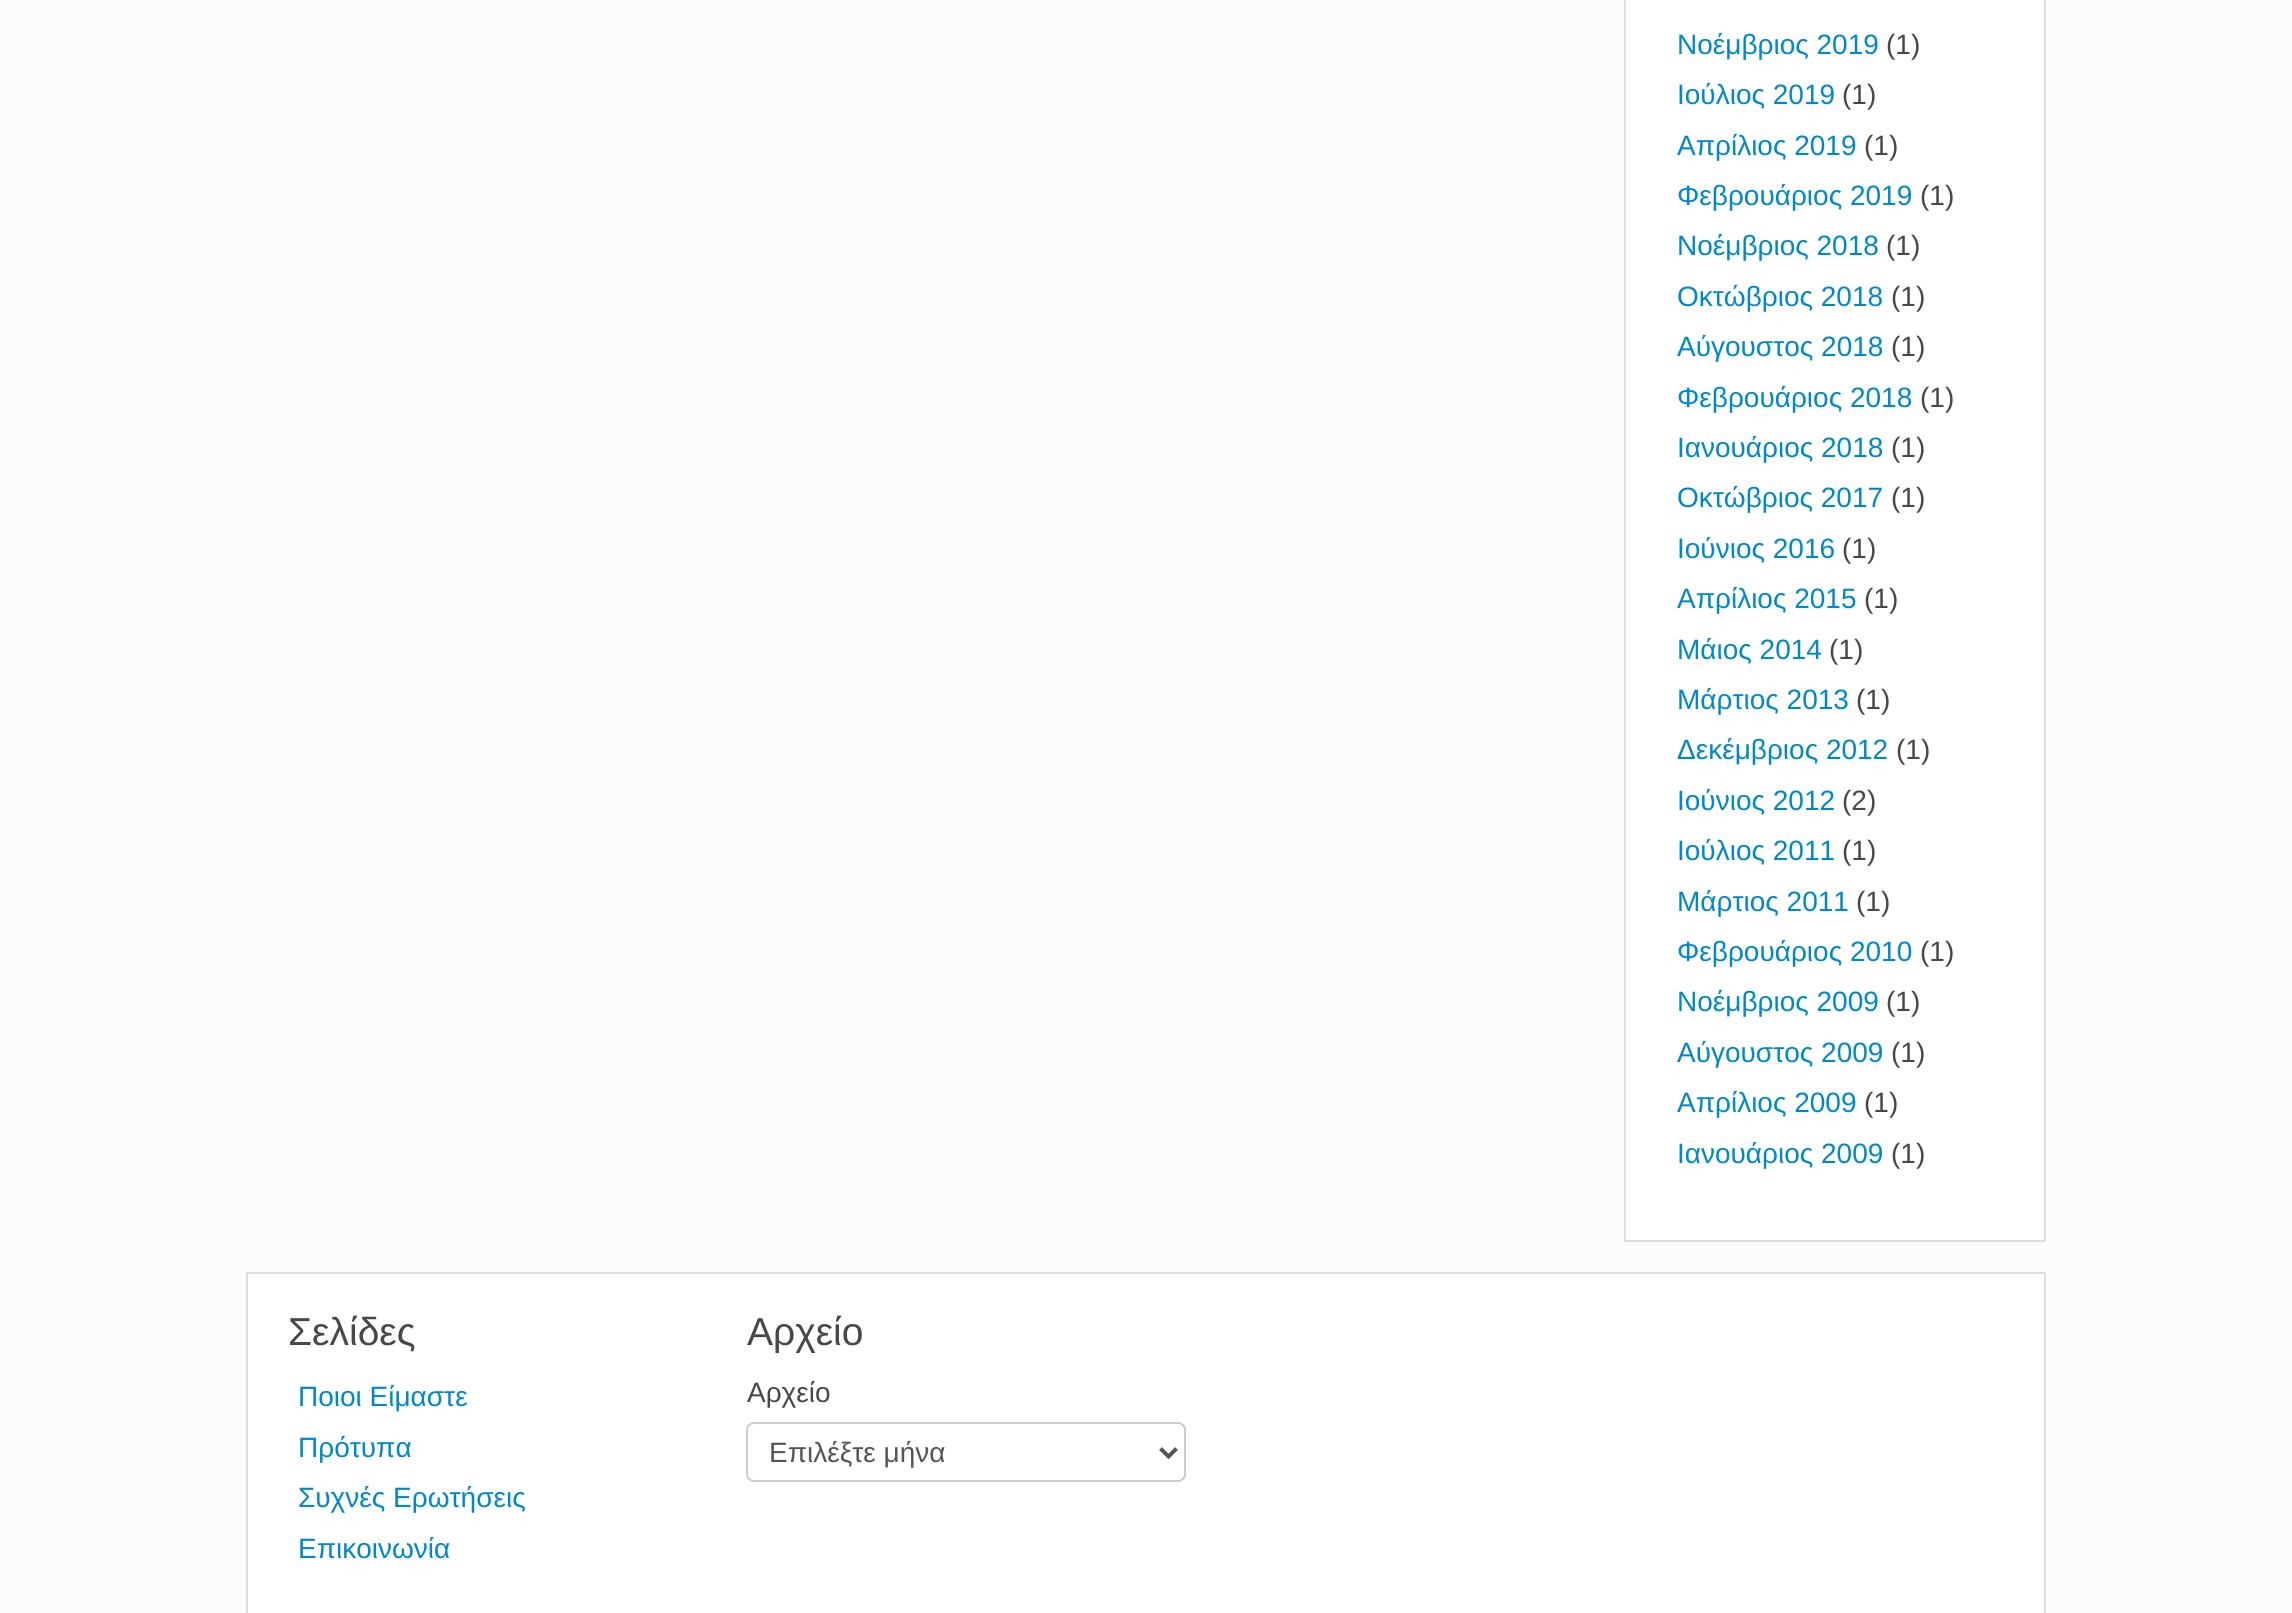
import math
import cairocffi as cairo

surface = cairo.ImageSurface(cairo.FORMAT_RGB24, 2292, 1613)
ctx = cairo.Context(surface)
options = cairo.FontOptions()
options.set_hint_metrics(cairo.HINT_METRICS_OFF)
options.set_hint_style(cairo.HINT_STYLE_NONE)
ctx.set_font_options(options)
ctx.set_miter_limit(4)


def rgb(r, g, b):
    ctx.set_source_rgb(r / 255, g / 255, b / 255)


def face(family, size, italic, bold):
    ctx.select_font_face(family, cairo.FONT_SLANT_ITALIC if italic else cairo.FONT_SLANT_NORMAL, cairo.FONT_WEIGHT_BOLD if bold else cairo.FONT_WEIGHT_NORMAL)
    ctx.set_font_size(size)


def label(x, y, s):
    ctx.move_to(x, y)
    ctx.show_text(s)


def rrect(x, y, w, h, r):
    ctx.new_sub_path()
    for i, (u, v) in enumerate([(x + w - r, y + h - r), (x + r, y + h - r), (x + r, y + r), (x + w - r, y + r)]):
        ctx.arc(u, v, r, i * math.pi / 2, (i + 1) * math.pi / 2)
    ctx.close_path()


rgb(252, 252, 252)
ctx.paint()
rgb(255, 255, 255)
ctx.rectangle(1625, -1, 420, 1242)
ctx.fill_preserve()
rgb(221, 221, 221)
ctx.stroke()
face('Liberation Sans', 28, 0, 0)
rgb(0, 136, 204)
label(1677, 54, 'Νοέμβριος 2019')
rgb(72, 72, 72)
label(1886, 54, '(1)')
rgb(0, 136, 204)
label(1677, 104, 'Ιούλιος 2019')
rgb(72, 72, 72)
label(1842, 104, '(1)')
rgb(0, 136, 204)
label(1677, 155, 'Απρίλιος 2019')
rgb(72, 72, 72)
label(1864, 155, '(1)')
rgb(0, 136, 204)
label(1677, 205, 'Φεβρουάριος 2019')
rgb(72, 72, 72)
label(1920, 205, '(1)')
rgb(0, 136, 204)
label(1677, 255, 'Νοέμβριος 2018')
rgb(72, 72, 72)
label(1886, 255, '(1)')
rgb(0, 136, 204)
label(1677, 306, 'Οκτώβριος 2018')
rgb(72, 72, 72)
label(1891, 306, '(1)')
rgb(0, 136, 204)
label(1677, 356, 'Αύγουστος 2018')
rgb(72, 72, 72)
label(1891, 356, '(1)')
rgb(0, 136, 204)
label(1677, 407, 'Φεβρουάριος 2018')
rgb(72, 72, 72)
label(1920, 407, '(1)')
rgb(0, 136, 204)
label(1677, 457, 'Ιανουάριος 2018')
rgb(72, 72, 72)
label(1891, 457, '(1)')
rgb(0, 136, 204)
label(1677, 507, 'Οκτώβριος 2017')
rgb(72, 72, 72)
label(1891, 507, '(1)')
rgb(0, 136, 204)
label(1677, 558, 'Ιούνιος 2016')
rgb(72, 72, 72)
label(1842, 558, '(1)')
rgb(0, 136, 204)
label(1677, 608, 'Απρίλιος 2015')
rgb(72, 72, 72)
label(1864, 608, '(1)')
rgb(0, 136, 204)
label(1677, 659, 'Μάιος 2014')
rgb(72, 72, 72)
label(1829, 659, '(1)')
rgb(0, 136, 204)
label(1677, 709, 'Μάρτιος 2013')
rgb(72, 72, 72)
label(1856, 709, '(1)')
rgb(0, 136, 204)
label(1677, 759, 'Δεκέμβριος 2012')
rgb(72, 72, 72)
label(1896, 759, '(1)')
rgb(0, 136, 204)
label(1677, 810, 'Ιούνιος 2012')
rgb(72, 72, 72)
label(1842, 810, '(2)')
rgb(0, 136, 204)
label(1677, 860, 'Ιούλιος 2011')
rgb(72, 72, 72)
label(1842, 860, '(1)')
rgb(0, 136, 204)
label(1677, 911, 'Μάρτιος 2011')
rgb(72, 72, 72)
label(1856, 911, '(1)')
rgb(0, 136, 204)
label(1677, 961, 'Φεβρουάριος 2010')
rgb(72, 72, 72)
label(1920, 961, '(1)')
rgb(0, 136, 204)
label(1677, 1011, 'Νοέμβριος 2009')
rgb(72, 72, 72)
label(1886, 1011, '(1)')
rgb(0, 136, 204)
label(1677, 1062, 'Αύγουστος 2009')
rgb(72, 72, 72)
label(1891, 1062, '(1)')
rgb(0, 136, 204)
label(1677, 1112, 'Απρίλιος 2009')
rgb(72, 72, 72)
label(1864, 1112, '(1)')
rgb(0, 136, 204)
label(1677, 1163, 'Ιανουάριος 2009')
rgb(72, 72, 72)
label(1891, 1163, '(1)')
rgb(255, 255, 255)
ctx.rectangle(247, 1273, 1798, 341)
ctx.fill_preserve()
rgb(221, 221, 221)
ctx.stroke()
face('Liberation Sans', 39, 0, 0)
rgb(72, 72, 72)
label(288, 1345, 'Σελίδες')
face('Liberation Sans', 28, 0, 0)
rgb(0, 136, 204)
label(298, 1406, 'Ποιοι Είμαστε')
label(298, 1457, 'Πρότυπα')
label(298, 1507, 'Συχνές Ερωτήσεις')
label(298, 1558, 'Επικοινωνία')
face('Liberation Sans', 39, 0, 0)
rgb(72, 72, 72)
label(747, 1345, 'Αρχείο')
face('Liberation Sans', 28, 0, 0)
label(747, 1402, 'Αρχείο')
rrect(747, 1423, 438, 58, 7)
rgb(204, 204, 204)
ctx.stroke()
ctx.new_path()
ctx.move_to(1160.5, 1448.5)
ctx.line_to(1168.5, 1456.5)
ctx.line_to(1176.5, 1448.5)
rgb(85, 85, 85)
ctx.set_line_width(4)
ctx.stroke()
label(769, 1462, 'Επιλέξτε μήνα')
surface.write_to_png('render.png')
